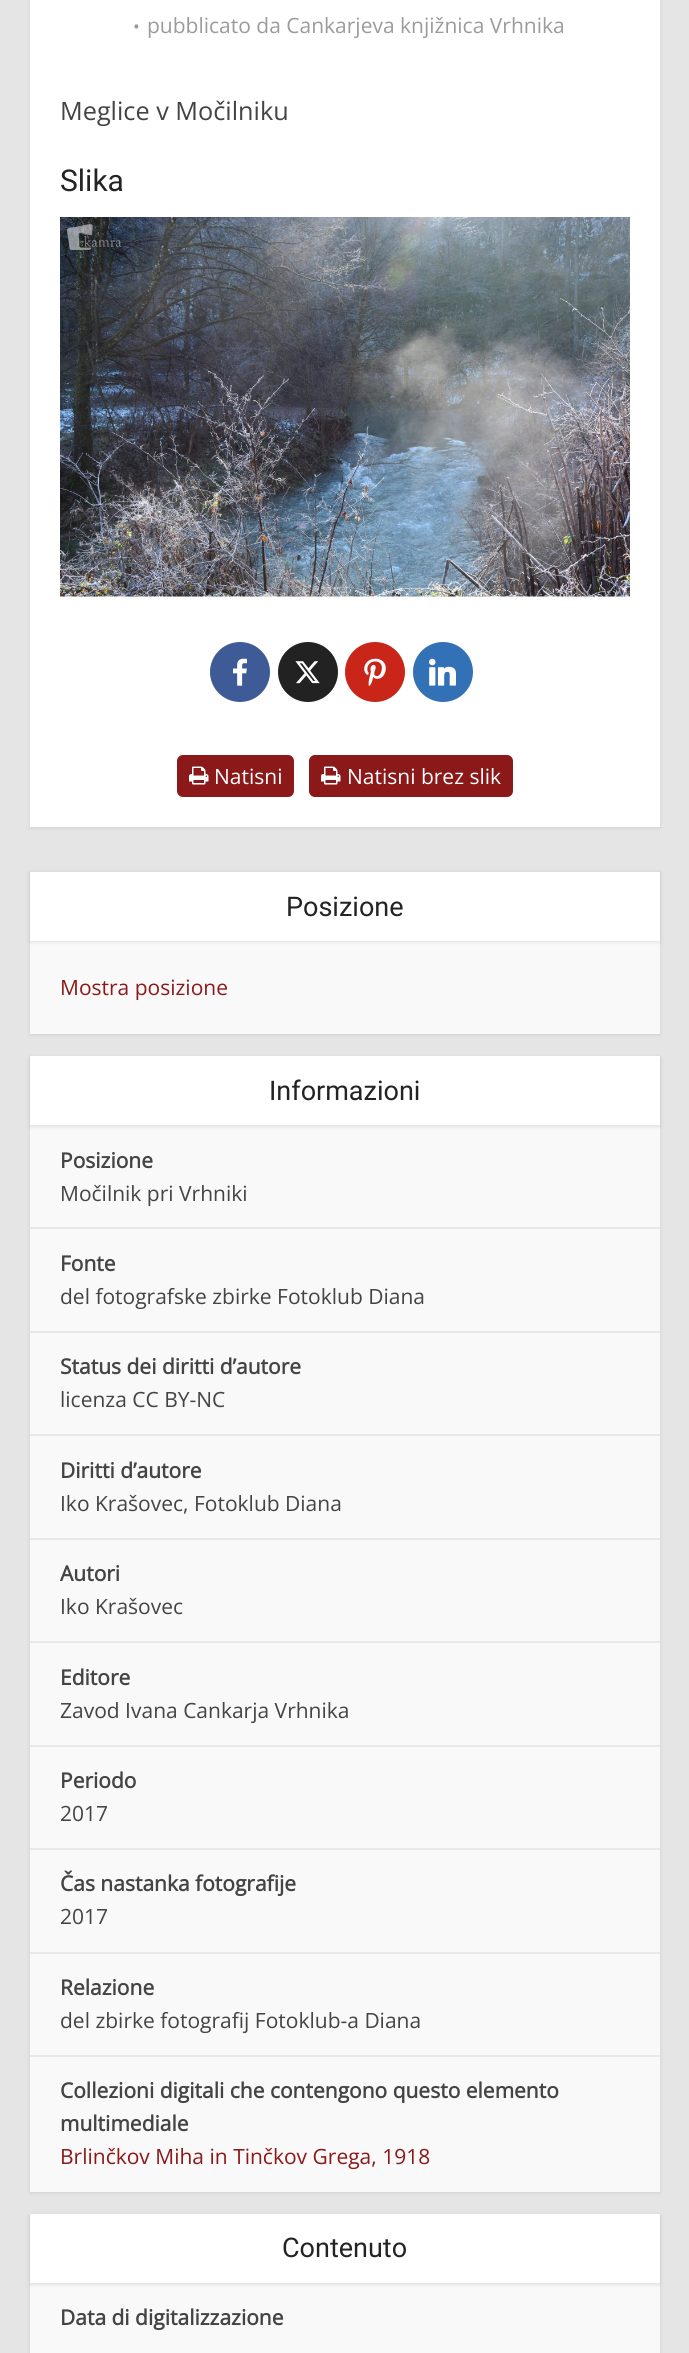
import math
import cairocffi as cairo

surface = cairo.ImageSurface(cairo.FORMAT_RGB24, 689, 2353)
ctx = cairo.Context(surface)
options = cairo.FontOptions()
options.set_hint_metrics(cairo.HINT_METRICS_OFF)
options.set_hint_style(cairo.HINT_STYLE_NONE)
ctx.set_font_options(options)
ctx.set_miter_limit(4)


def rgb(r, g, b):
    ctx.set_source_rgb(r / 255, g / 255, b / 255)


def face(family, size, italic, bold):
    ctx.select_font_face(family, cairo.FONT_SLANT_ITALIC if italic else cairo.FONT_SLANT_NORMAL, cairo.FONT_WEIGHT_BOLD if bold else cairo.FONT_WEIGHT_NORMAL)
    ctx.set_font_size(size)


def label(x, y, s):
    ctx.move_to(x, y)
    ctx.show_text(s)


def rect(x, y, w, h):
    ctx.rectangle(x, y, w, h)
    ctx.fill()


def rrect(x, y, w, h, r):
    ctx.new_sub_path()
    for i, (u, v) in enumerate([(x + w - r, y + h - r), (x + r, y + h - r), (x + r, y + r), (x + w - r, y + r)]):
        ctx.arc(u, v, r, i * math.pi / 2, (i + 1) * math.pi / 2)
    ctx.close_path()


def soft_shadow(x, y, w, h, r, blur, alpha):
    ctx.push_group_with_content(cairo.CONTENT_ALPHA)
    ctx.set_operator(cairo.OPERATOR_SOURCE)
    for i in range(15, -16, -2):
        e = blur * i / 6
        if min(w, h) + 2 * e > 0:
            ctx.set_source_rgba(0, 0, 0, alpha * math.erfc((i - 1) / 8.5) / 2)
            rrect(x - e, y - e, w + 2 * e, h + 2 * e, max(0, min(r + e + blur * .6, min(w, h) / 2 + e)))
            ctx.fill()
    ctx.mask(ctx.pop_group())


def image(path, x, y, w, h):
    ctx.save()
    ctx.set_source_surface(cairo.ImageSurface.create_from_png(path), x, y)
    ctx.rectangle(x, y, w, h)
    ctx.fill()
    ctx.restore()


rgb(229, 229, 229)
ctx.paint()
rgb(0, 0, 0)
soft_shadow(30, -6, 630, 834, 0, 2, 0.1)
rgb(255, 255, 255)
rect(30, 0, 630, 827)
face('Open Sans', 18, 0, 0)
rgb(155, 155, 155)
label(133, 33, '•')
face('Open Sans', 21, 0, 0)
label(147, 33, 'pubblicato da Cankarjeva knjižnica Vrhnika')
face('Open Sans', 25.25, 0, 0)
rgb(68, 68, 68)
label(60, 120, 'Meglice v Močilniku')
face('Roboto', 30, 0, 0)
rgb(35, 35, 35)
label(60, 191, 'Slika')
image('image0.png', 60, 217, 570, 380)
rgb(62, 91, 152)
ctx.arc(240, 672, 30, 0, 2 * math.pi)
ctx.fill()
image('image1.png', 233, 658, 14, 28)
rgb(34, 34, 34)
ctx.arc(308, 672, 30, 0, 2 * math.pi)
ctx.fill()
image('image2.png', 295, 661, 25, 23)
rgb(201, 38, 25)
ctx.arc(375, 672, 30, 0, 2 * math.pi)
ctx.fill()
image('image3.png', 364, 658, 22, 28)
rgb(51, 113, 183)
ctx.arc(443, 672, 30, 0, 2 * math.pi)
ctx.fill()
image('image4.png', 429, 658, 27, 28)
rgb(140, 25, 25)
rrect(177, 755, 117, 42, 6)
ctx.fill()
image('image5.png', 189, 766, 20, 19)
face('Open Sans', 21, 0, 0)
rgb(255, 255, 255)
label(214, 784, 'Natisni')
rgb(140, 25, 25)
rrect(309, 755, 204, 42, 6)
ctx.fill()
image('image5.png', 321, 766, 20, 19)
rgb(255, 255, 255)
label(347, 784, 'Natisni brez slik')
rgb(0, 0, 0)
soft_shadow(30, 873, 630, 162, 0, 2, 0.1)
rgb(249, 249, 249)
rect(30, 941, 630, 93)
rgb(0, 0, 0)
soft_shadow(30, 873, 630, 69, 0, 2, 0.1)
rgb(255, 255, 255)
rect(30, 872, 630, 69)
face('Roboto', 27, 0, 0)
rgb(35, 35, 35)
label(286, 916, 'Posizione')
face('Open Sans', 21, 0, 0)
rgb(140, 25, 25)
label(60, 995, 'Mostra posizione')
rgb(0, 0, 0)
soft_shadow(30, 1058, 630, 1135, 0, 2, 0.1)
rgb(249, 249, 249)
rect(30, 1125, 630, 1067)
rgb(0, 0, 0)
soft_shadow(30, 1058, 630, 69, 0, 2, 0.1)
rgb(255, 255, 255)
rect(30, 1056, 630, 69)
face('Roboto', 27, 0, 0)
rgb(35, 35, 35)
label(269, 1100, 'Informazioni')
rgb(232, 232, 232)
rect(30, 1227, 630, 2)
face('Open Sans', 21, 0, 1)
rgb(68, 68, 68)
label(60, 1168, 'Posizione')
face('Open Sans', 21, 0, 0)
label(60, 1201, 'Močilnik pri Vrhniki')
rgb(232, 232, 232)
rect(30, 1331, 630, 2)
face('Open Sans', 21, 0, 1)
rgb(68, 68, 68)
label(60, 1271, 'Fonte')
face('Open Sans', 21, 0, 0)
label(60, 1304, 'del fotografske zbirke Fotoklub Diana')
rgb(232, 232, 232)
rect(30, 1434, 630, 2)
face('Open Sans', 21, 0, 1)
rgb(68, 68, 68)
label(60, 1374, 'Status dei diritti d’autore')
face('Open Sans', 21, 0, 0)
label(60, 1407, 'licenza CC BY-NC')
rgb(232, 232, 232)
rect(30, 1538, 630, 2)
face('Open Sans', 21, 0, 1)
rgb(68, 68, 68)
label(60, 1478, 'Diritti d’autore')
face('Open Sans', 21, 0, 0)
label(60, 1511, 'Iko Krašovec, Fotoklub Diana')
rgb(232, 232, 232)
rect(30, 1641, 630, 2)
face('Open Sans', 21, 0, 1)
rgb(68, 68, 68)
label(60, 1581, 'Autori')
face('Open Sans', 21, 0, 0)
label(60, 1614, 'Iko Krašovec')
rgb(232, 232, 232)
rect(30, 1745, 630, 2)
face('Open Sans', 21, 0, 1)
rgb(68, 68, 68)
label(60, 1685, 'Editore')
face('Open Sans', 21, 0, 0)
label(60, 1718, 'Zavod Ivana Cankarja Vrhnika')
rgb(232, 232, 232)
rect(30, 1848, 630, 2)
face('Open Sans', 21, 0, 1)
rgb(68, 68, 68)
label(60, 1788, 'Periodo')
face('Open Sans', 21, 0, 0)
label(60, 1821, '2017')
rgb(232, 232, 232)
rect(30, 1952, 630, 2)
face('Open Sans', 21, 0, 1)
rgb(68, 68, 68)
label(60, 1891, 'Čas nastanka fotografije')
face('Open Sans', 21, 0, 0)
label(60, 1924, '2017')
rgb(232, 232, 232)
rect(30, 2055, 630, 2)
face('Open Sans', 21, 0, 1)
rgb(68, 68, 68)
label(60, 1995, 'Relazione')
face('Open Sans', 21, 0, 0)
label(60, 2028, 'del zbirke fotografij Fotoklub-a Diana')
face('Open Sans', 21, 0, 1)
label(60, 2098, 'Collezioni digitali che contengono questo elemento')
label(60, 2131, 'multimediale')
face('Open Sans', 21, 0, 0)
rgb(140, 25, 25)
label(60, 2164, 'Brlinčkov Miha in Tinčkov Grega, 1918')
rgb(0, 0, 0)
soft_shadow(30, 2216, 630, 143, 0, 2, 0.1)
rgb(249, 249, 249)
rect(30, 2283, 630, 70)
rgb(0, 0, 0)
soft_shadow(30, 2216, 630, 69, 0, 2, 0.1)
rgb(255, 255, 255)
rect(30, 2214, 630, 69)
face('Roboto', 27, 0, 0)
rgb(35, 35, 35)
label(282, 2257, 'Contenuto')
face('Open Sans', 21, 0, 1)
rgb(68, 68, 68)
label(60, 2325, 'Data di digitalizzazione')
surface.write_to_png('render.png')
